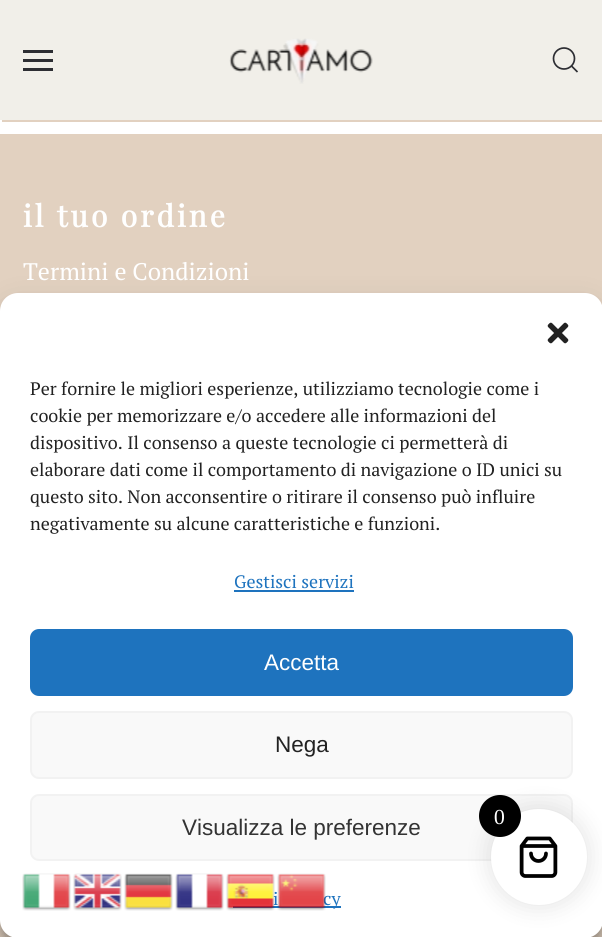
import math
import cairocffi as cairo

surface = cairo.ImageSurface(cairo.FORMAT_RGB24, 602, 937)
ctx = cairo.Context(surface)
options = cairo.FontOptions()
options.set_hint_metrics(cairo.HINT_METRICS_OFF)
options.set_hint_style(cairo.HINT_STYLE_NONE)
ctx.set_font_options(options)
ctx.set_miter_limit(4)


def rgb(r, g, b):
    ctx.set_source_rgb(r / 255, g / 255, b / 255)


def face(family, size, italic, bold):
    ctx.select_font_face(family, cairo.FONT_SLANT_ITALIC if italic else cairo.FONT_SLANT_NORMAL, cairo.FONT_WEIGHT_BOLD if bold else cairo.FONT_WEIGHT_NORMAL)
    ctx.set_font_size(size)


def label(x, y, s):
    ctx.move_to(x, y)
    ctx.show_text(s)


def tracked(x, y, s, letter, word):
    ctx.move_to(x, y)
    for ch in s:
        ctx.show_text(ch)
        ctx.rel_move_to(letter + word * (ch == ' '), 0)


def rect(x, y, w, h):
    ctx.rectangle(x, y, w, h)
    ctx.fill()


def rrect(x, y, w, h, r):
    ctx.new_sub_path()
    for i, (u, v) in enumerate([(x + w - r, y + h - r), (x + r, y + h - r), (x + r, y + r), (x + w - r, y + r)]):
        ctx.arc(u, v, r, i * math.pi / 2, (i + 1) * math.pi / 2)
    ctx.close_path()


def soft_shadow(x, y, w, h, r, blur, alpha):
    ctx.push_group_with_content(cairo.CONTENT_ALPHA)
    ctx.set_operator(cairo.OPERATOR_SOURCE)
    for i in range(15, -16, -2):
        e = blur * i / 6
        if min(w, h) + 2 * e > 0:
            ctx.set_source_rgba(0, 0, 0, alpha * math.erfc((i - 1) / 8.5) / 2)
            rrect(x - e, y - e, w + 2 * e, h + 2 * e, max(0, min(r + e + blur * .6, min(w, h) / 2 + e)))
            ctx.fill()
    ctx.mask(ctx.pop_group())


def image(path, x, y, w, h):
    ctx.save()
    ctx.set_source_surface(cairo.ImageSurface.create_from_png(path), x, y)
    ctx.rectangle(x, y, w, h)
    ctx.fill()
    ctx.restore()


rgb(255, 255, 255)
ctx.paint()
rgb(226, 209, 192)
ctx.new_path()
ctx.move_to(2, 120)
ctx.line_to(2, 122)
ctx.line_to(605, 122)
ctx.line_to(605, 2)
ctx.line_to(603, 2)
ctx.line_to(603, 120)
ctx.close_path()
ctx.fill()
rgb(241, 239, 233)
rect(0, 0, 602, 120)
rgb(45, 46, 51)
rect(23, 50, 30, 3)
rect(23, 59, 30, 3)
rect(23, 68, 30, 3)
image('image0.png', 229, 38, 144, 46)
ctx.arc(564, 58.5, 10.5, 0, 2 * math.pi)
ctx.set_line_width(1.7)
ctx.stroke()
ctx.new_path()
ctx.move_to(571.5, 66)
ctx.line_to(577.5, 72)
ctx.close_path()
ctx.stroke()
rgb(226, 209, 192)
rect(0, 134, 602, 803)
face('Playfair Display', 30, 0, 1)
rgb(255, 255, 255)
tracked(23, 227, 'il tuo ordine', 3, 0)
face('PT Serif', 24, 0, 0)
label(23, 280, 'Termini e Condizioni')
rgb(0, 0, 0)
soft_shadow(0, 302, 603, 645, 18, 4.5, 0.23)
soft_shadow(0, 308, 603, 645, 18, 15, 0.19)
rgb(255, 255, 255)
rrect(0, 293, 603, 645, 18)
ctx.fill()
image('image1.png', 547, 322, 22, 22)
face('PT Serif', 18, 0, 0)
rgb(34, 34, 34)
label(30, 395, 'Per fornire le migliori esperienze, utilizziamo tecnologie come i')
label(30, 422, 'cookie per memorizzare e/o accedere alle informazioni del')
label(30, 449, 'dispositivo. Il consenso a queste tecnologie ci permetterà di')
label(30, 476, 'elaborare dati come il comportamento di navigazione o ID unici su')
label(30, 503, 'questo sito. Non acconsentire o ritirare il consenso può influire')
label(30, 530, 'negativamente su alcune caratteristiche e funzioni.')
rgb(30, 115, 190)
label(234, 588, 'Gestisci servizi')
rect(234, 590, 120, 2)
rrect(31, 630, 541, 65, 8)
ctx.fill_preserve()
ctx.set_line_width(2)
ctx.stroke()
face('Liberation Sans', 22.5, 0, 0)
rgb(255, 255, 255)
label(264, 670, 'Accetta')
rgb(249, 249, 249)
rrect(31, 712, 541, 66, 8)
ctx.fill_preserve()
rgb(242, 242, 242)
ctx.stroke()
rgb(34, 34, 34)
label(275, 752, 'Nega')
rgb(249, 249, 249)
rrect(31, 795, 541, 65, 8)
ctx.fill_preserve()
rgb(242, 242, 242)
ctx.stroke()
rgb(51, 51, 51)
label(182, 835, 'Visualizza le preferenze')
face('PT Serif', 18, 0, 0)
rgb(30, 115, 190)
label(273, 905, 'i')
rect(233, 906, 108, 2)
label(323, 905, 'cy')
rgb(0, 0, 0)
soft_shadow(488, 806, 102, 102, 51, 11, 0.1)
rgb(255, 255, 255)
ctx.arc(539, 857, 48, 0, 2 * math.pi)
ctx.fill()
image('image2.png', 519, 836, 39, 42)
rgb(0, 0, 0)
ctx.arc(500, 816, 21, 0, 2 * math.pi)
ctx.fill()
face('PT Serif', 20, 0, 0)
rgb(255, 255, 255)
label(494, 824, '0')
image('image3.png', 22, 873, 49, 38)
image('image4.png', 73, 873, 49, 38)
image('image5.png', 124, 873, 49, 38)
image('image6.png', 175, 873, 49, 38)
image('image7.png', 226, 873, 49, 38)
image('image8.png', 277, 873, 49, 38)
surface.write_to_png('render.png')
